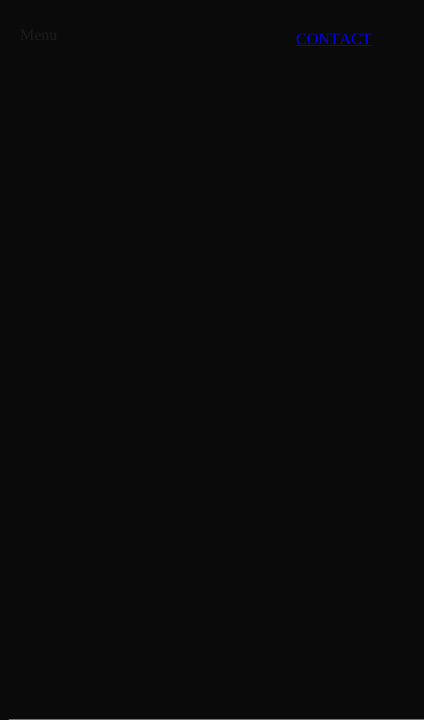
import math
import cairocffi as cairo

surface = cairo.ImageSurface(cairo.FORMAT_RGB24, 424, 720)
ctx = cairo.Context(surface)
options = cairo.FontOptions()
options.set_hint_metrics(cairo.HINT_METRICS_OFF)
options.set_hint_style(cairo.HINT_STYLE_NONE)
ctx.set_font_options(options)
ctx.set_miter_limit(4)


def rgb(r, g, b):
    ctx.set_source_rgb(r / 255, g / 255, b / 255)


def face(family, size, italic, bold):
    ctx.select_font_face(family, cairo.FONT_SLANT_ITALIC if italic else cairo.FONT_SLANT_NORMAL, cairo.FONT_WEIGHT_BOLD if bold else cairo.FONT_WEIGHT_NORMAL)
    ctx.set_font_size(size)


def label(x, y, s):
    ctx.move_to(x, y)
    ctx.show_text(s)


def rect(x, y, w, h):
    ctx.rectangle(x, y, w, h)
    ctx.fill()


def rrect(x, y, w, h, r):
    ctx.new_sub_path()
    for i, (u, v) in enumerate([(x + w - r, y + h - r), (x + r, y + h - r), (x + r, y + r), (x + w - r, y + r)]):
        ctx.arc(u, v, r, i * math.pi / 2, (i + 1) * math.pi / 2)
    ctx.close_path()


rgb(10, 10, 10)
ctx.paint()
face('Liberation Serif', 16, 0, 0)
rgb(27, 27, 27)
label(20, 40, 'Menu')
rgb(0, 0, 238)
label(296, 44, 'CONTACT')
rect(296, 45, 76, 1)
rrect(8.5, 719.5, 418, 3, 1.5)
rgb(118, 118, 118)
ctx.set_line_width(1)
ctx.stroke()
surface.write_to_png('render.png')
